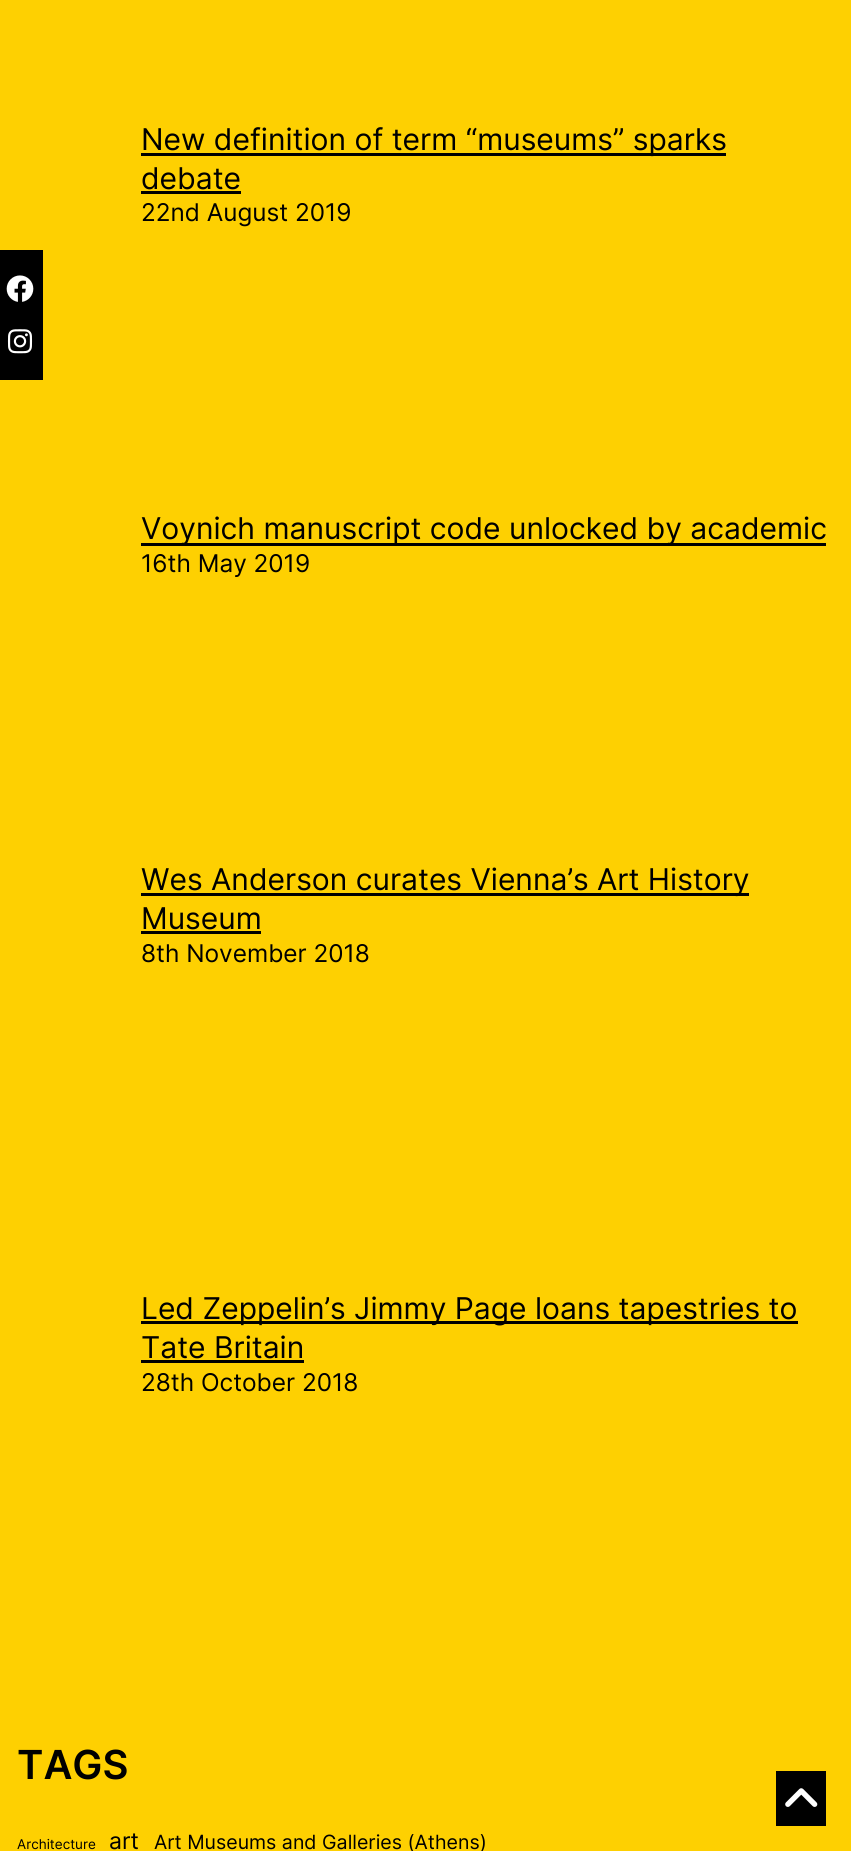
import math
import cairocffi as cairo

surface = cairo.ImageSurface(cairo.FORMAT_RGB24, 851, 1851)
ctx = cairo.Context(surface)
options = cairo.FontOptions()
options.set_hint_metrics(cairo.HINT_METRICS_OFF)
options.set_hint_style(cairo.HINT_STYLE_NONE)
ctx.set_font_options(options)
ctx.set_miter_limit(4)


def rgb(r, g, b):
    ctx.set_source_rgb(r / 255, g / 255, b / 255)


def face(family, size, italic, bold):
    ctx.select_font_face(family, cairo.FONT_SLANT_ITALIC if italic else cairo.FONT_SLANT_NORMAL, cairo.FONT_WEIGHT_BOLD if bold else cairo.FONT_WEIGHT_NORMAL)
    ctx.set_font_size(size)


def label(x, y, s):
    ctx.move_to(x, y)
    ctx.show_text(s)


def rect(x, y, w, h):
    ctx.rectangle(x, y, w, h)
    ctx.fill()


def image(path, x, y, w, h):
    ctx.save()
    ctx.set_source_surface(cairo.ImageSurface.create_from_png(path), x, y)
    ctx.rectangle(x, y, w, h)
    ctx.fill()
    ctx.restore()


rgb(254, 208, 1)
ctx.paint()
rgb(0, 0, 0)
rect(141, 153, 585, 3)
face('Inter', 30, 0, 0)
label(141, 150, 'New definition of term “museums” sparks')
label(141, 189, 'debate')
rect(141, 191, 100, 3)
face('Inter', 24.4, 0, 0)
label(141, 221, '22nd August 2019')
rect(141, 543, 685, 3)
face('Inter', 30, 0, 0)
label(141, 539, 'Voynich manuscript code unlocked by academic')
face('Inter', 24.4, 0, 0)
label(141, 572, '16th May 2019')
rect(141, 893, 608, 3)
face('Inter', 30, 0, 0)
label(141, 890, 'Wes Anderson curates Vienna’s Art History')
label(141, 929, 'Museum')
rect(141, 931, 120, 3)
face('Inter', 24.4, 0, 0)
label(141, 962, '8th November 2018')
rect(141, 1321, 657, 3)
face('Inter', 30, 0, 0)
label(141, 1319, 'Led Zeppelin’s Jimmy Page loans tapestries to')
label(141, 1358, 'Tate Britain')
rect(141, 1360, 163, 3)
face('Inter', 24.4, 0, 0)
label(141, 1391, '28th October 2018')
face('Inter SemiBold', 40, 0, 0)
label(17, 1779, 'TAGS')
face('Inter', 13.5, 0, 0)
label(17, 1849, 'Architecture')
face('Inter', 23, 0, 0)
label(109, 1849, 'art')
face('Inter', 19.6, 0, 0)
label(154, 1849, 'Art Museums and Galleries (Athens)')
rect(0, 250, 43, 130)
image('image0.png', 6, 275, 28, 27)
image('image1.png', 7, 329, 26, 25)
rect(776, 1771, 50, 55)
image('image2.png', 785, 1788, 33, 19)
surface.write_to_png('render.png')
